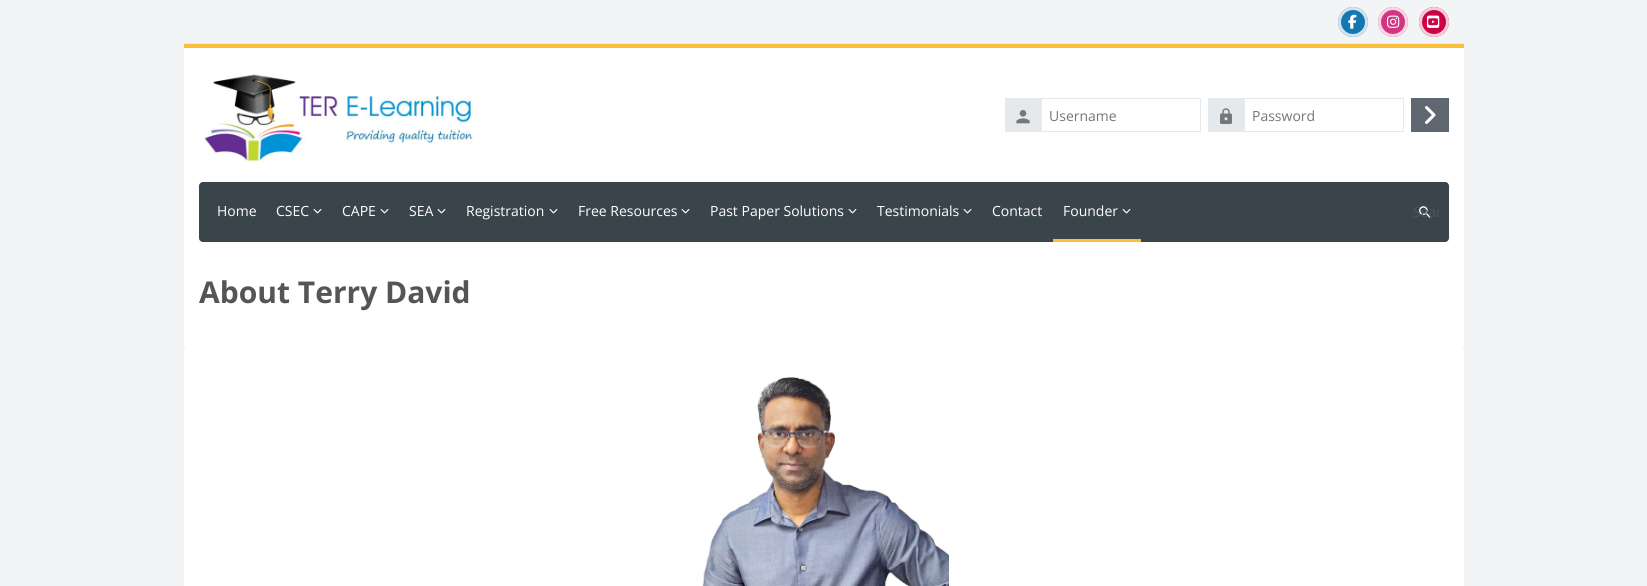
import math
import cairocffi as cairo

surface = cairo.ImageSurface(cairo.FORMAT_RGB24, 1647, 586)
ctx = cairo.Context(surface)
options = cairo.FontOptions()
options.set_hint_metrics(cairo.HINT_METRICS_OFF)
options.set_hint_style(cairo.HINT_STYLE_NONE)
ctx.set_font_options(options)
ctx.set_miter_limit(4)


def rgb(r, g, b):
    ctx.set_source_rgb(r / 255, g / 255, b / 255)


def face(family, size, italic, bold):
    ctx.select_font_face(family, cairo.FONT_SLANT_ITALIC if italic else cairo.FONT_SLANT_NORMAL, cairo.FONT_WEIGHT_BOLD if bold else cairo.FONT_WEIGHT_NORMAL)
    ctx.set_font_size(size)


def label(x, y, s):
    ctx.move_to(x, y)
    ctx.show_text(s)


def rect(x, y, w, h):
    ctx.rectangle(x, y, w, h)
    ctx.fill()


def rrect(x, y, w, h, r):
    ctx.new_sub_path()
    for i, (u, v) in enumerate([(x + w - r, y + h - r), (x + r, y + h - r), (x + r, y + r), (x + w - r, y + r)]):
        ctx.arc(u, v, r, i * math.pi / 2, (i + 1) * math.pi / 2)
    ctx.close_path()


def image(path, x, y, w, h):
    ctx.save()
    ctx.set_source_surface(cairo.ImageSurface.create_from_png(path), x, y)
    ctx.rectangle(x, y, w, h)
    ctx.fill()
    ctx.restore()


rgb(242, 244, 246)
ctx.paint()
rgb(230, 232, 234)
rect(184, 43, 1280, 1)
rgb(19, 120, 177)
ctx.arc(1353, 22, 15, 0, 2 * math.pi)
ctx.fill()
ctx.arc(1353, 22, 13.5, 0, 2 * math.pi)
ctx.set_source_rgba(1, 1, 1, 0.8)
ctx.set_line_width(3)
ctx.stroke()
image('image0.png', 1348, 14, 9, 15)
rgb(211, 54, 128)
ctx.arc(1393, 22, 15, 0, 2 * math.pi)
ctx.fill()
ctx.arc(1393, 22, 13.5, 0, 2 * math.pi)
ctx.set_source_rgba(1, 1, 1, 0.8)
ctx.stroke()
image('image1.png', 1387, 15, 13, 13)
rgb(205, 2, 70)
ctx.arc(1434, 22, 15, 0, 2 * math.pi)
ctx.fill()
ctx.arc(1434, 22, 13.5, 0, 2 * math.pi)
ctx.set_source_rgba(1, 1, 1, 0.8)
ctx.stroke()
image('image2.png', 1427, 15, 13, 13)
rgb(255, 255, 255)
rect(184, 48, 1280, 300)
rgb(249, 191, 59)
rect(184, 44, 1280, 4)
image('image3.png', 204, 74, 270, 88)
rgb(230, 233, 236)
rect(1005, 98, 36, 34)
image('image4.png', 1016, 110, 14, 14)
ctx.rectangle(1041.5, 98.5, 159, 33)
rgb(233, 233, 233)
ctx.set_line_width(1)
ctx.stroke()
face('Open Sans', 14, 0, 0)
rgb(117, 117, 117)
label(1049, 121, 'Username')
rgb(230, 233, 236)
rect(1208, 98, 36, 34)
image('image5.png', 1220, 108, 12, 16)
ctx.rectangle(1244.5, 98.5, 159, 33)
rgb(233, 233, 233)
ctx.stroke()
rgb(117, 117, 117)
label(1252, 121, 'Password')
rgb(95, 104, 112)
rect(1411, 98, 38, 34)
image('image6.png', 1425, 106, 11, 18)
rgb(58, 69, 75)
rrect(199, 182, 1250, 60, 4)
ctx.fill()
rgb(255, 255, 255)
label(217, 216, 'Home')
label(276, 216, 'CSEC')
image('image7.png', 313, 209, 9, 5)
label(342, 216, 'CAPE')
image('image7.png', 380, 209, 9, 5)
label(409, 216, 'SEA')
image('image7.png', 437, 209, 9, 5)
label(466, 216, 'Registration')
image('image7.png', 549, 209, 9, 5)
label(578, 216, 'Free Resources')
image('image7.png', 681, 209, 9, 5)
label(710, 216, 'Past Paper Solutions')
image('image7.png', 848, 209, 9, 5)
label(877, 216, 'Testimonials')
image('image7.png', 963, 209, 9, 5)
label(992, 216, 'Contact')
rgb(249, 191, 59)
rect(1053, 239, 88, 3)
rgb(255, 255, 255)
label(1063, 216, 'Founder')
image('image7.png', 1122, 209, 9, 5)
image('image8.png', 1419, 206, 12, 12)
ctx.save()
ctx.rectangle(1413, 202, 26, 19)
ctx.clip()
rgb(75, 85, 91)
label(1413, 217, 'Sear')
ctx.restore()
face('Open Sans', 30, 0, 1)
rgb(85, 85, 85)
label(199, 303, 'About Terry David')
rgb(255, 255, 255)
rrect(184, 348, 1280, 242, 4)
ctx.fill()
image('image9.png', 702, 377, 247, 209)
surface.write_to_png('render.png')
